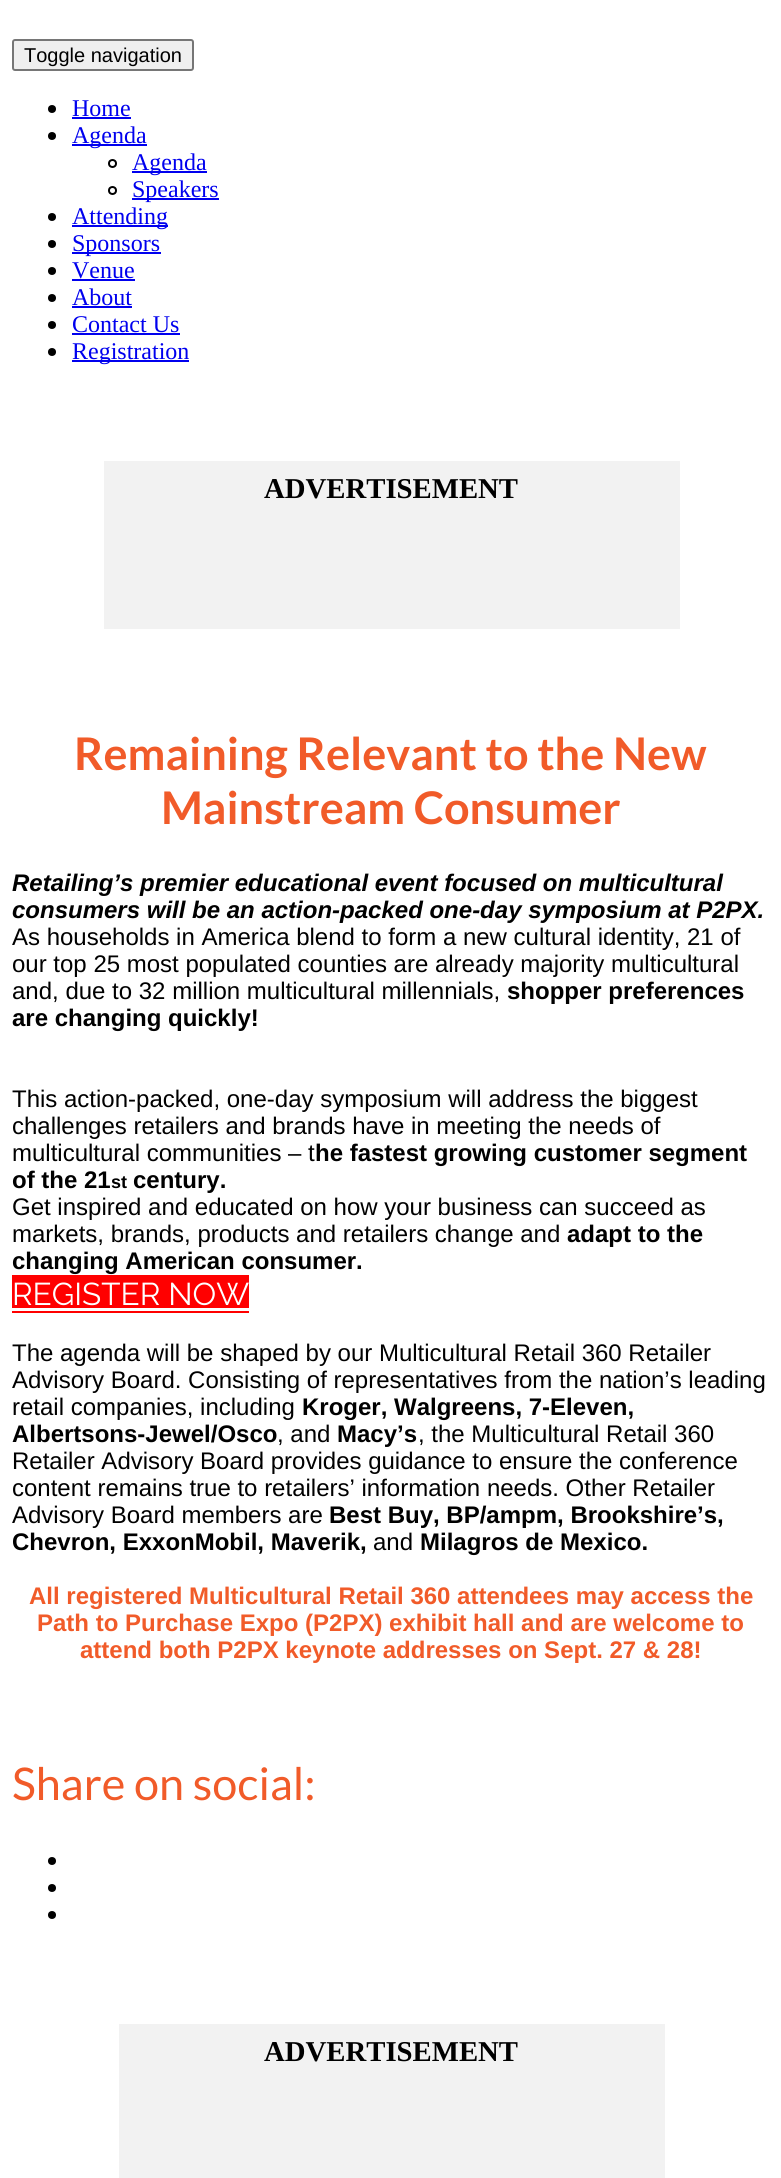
import math
import cairocffi as cairo

surface = cairo.ImageSurface(cairo.FORMAT_RGB24, 781, 2178)
ctx = cairo.Context(surface)
options = cairo.FontOptions()
options.set_hint_metrics(cairo.HINT_METRICS_OFF)
options.set_hint_style(cairo.HINT_STYLE_NONE)
ctx.set_font_options(options)
ctx.set_miter_limit(4)


def rgb(r, g, b):
    ctx.set_source_rgb(r / 255, g / 255, b / 255)


def face(family, size, italic, bold):
    ctx.select_font_face(family, cairo.FONT_SLANT_ITALIC if italic else cairo.FONT_SLANT_NORMAL, cairo.FONT_WEIGHT_BOLD if bold else cairo.FONT_WEIGHT_NORMAL)
    ctx.set_font_size(size)


def label(x, y, s):
    ctx.move_to(x, y)
    ctx.show_text(s)


def rect(x, y, w, h):
    ctx.rectangle(x, y, w, h)
    ctx.fill()


def rrect(x, y, w, h, r):
    ctx.new_sub_path()
    for i, (u, v) in enumerate([(x + w - r, y + h - r), (x + r, y + h - r), (x + r, y + r), (x + w - r, y + r)]):
        ctx.arc(u, v, r, i * math.pi / 2, (i + 1) * math.pi / 2)
    ctx.close_path()


rgb(255, 255, 255)
ctx.paint()
rgb(239, 239, 239)
rrect(13, 40, 180, 30, 2)
ctx.fill_preserve()
rgb(118, 118, 118)
ctx.stroke()
face('Liberation Sans', 20, 0, 0)
rgb(0, 0, 0)
label(24, 62, 'Toggle navigation')
ctx.new_path()
ctx.arc(52, 109, 4, 0, 2 * math.pi)
ctx.fill()
face('Liberation Serif', 24, 0, 0)
rgb(0, 0, 238)
label(72, 116, 'Home')
rect(72, 117, 59, 2)
rgb(0, 0, 0)
ctx.new_path()
ctx.arc(52, 136, 4, 0, 2 * math.pi)
ctx.fill()
rgb(0, 0, 238)
rect(72, 144, 75, 2)
label(72, 143, 'Agenda')
ctx.new_path()
ctx.arc(112.5, 163.5, 3.5, 0, 2 * math.pi)
rgb(0, 0, 0)
ctx.stroke()
rgb(0, 0, 238)
rect(132, 171, 75, 2)
label(132, 170, 'Agenda')
ctx.new_path()
ctx.arc(112.5, 190.5, 3.5, 0, 2 * math.pi)
rgb(0, 0, 0)
ctx.stroke()
rgb(0, 0, 238)
rect(132, 198, 87, 2)
label(132, 197, 'Speakers')
rgb(0, 0, 0)
ctx.new_path()
ctx.arc(52, 217, 4, 0, 2 * math.pi)
ctx.fill()
rgb(0, 0, 238)
rect(72, 225, 96, 2)
label(72, 224, 'Attending')
rgb(0, 0, 0)
ctx.new_path()
ctx.arc(52, 244, 4, 0, 2 * math.pi)
ctx.fill()
rgb(0, 0, 238)
rect(72, 252, 89, 2)
label(72, 251, 'Sponsors')
rgb(0, 0, 0)
ctx.new_path()
ctx.arc(52, 271, 4, 0, 2 * math.pi)
ctx.fill()
rgb(0, 0, 238)
label(72, 278, 'Venue')
rect(72, 279, 63, 2)
rgb(0, 0, 0)
ctx.new_path()
ctx.arc(52, 298, 4, 0, 2 * math.pi)
ctx.fill()
rgb(0, 0, 238)
label(72, 305, 'About')
rect(72, 306, 60, 2)
rgb(0, 0, 0)
ctx.new_path()
ctx.arc(52, 325, 4, 0, 2 * math.pi)
ctx.fill()
rgb(0, 0, 238)
label(72, 332, 'Contact Us')
rect(72, 333, 108, 2)
rgb(0, 0, 0)
ctx.new_path()
ctx.arc(52, 352, 4, 0, 2 * math.pi)
ctx.fill()
rgb(0, 0, 238)
rect(72, 360, 117, 2)
label(72, 359, 'Registration')
rgb(242, 242, 242)
rect(104, 461, 576, 168)
face('Liberation Serif', 28.75, 0, 1)
rgb(0, 0, 0)
label(264, 498, 'ADVERTISEMENT')
face('Lato', 45, 0, 1)
rgb(241, 91, 41)
label(74, 770, 'Remaining Relevant to the New')
label(161, 824, 'Mainstream Consumer')
face('Liberation Sans', 24, 1, 1)
rgb(0, 0, 0)
label(12, 891, 'Retailing’s premier educational event focused on multicultural')
label(12, 918, 'consumers will be an action-packed one-day symposium at P2PX.')
face('Liberation Sans', 24, 0, 0)
label(12, 945, 'As households in America blend to form a new cultural identity, 21 of')
label(12, 972, 'our top 25 most populated counties are already majority multicultural')
label(12, 999, 'and, due to 32 million multicultural millennials,')
face('Liberation Sans', 24, 0, 1)
label(507, 999, 'shopper preferences')
label(12, 1026, 'are changing quickly!')
face('Liberation Sans', 24, 0, 0)
label(12, 1107, 'This action-packed, one-day symposium will address the biggest')
label(12, 1134, 'challenges retailers and brands have in meeting the needs of')
label(12, 1161, 'multicultural communities – t')
face('Liberation Sans', 24, 0, 1)
label(315, 1161, 'he fastest growing customer segment')
label(12, 1188, 'of the 21')
face('Liberation Sans', 18, 0, 1)
label(111, 1188, 'st')
face('Liberation Sans', 24, 0, 1)
label(133, 1188, 'century.')
face('Liberation Sans', 24, 0, 0)
label(12, 1215, 'Get inspired and educated on how your business can succeed as')
label(12, 1242, 'markets, brands, products and retailers change and')
face('Liberation Sans', 24, 0, 1)
label(567, 1242, 'adapt to the')
label(12, 1269, 'changing American consumer.')
rgb(255, 0, 0)
rect(12, 1275, 237, 38)
face('Raleway', 31.5, 0, 0)
rgb(255, 255, 255)
label(12, 1305, 'REGISTER NOW')
rect(12, 1308, 237, 3)
face('Liberation Sans', 24, 0, 0)
rgb(0, 0, 0)
label(12, 1361, 'The agenda will be shaped by our Multicultural Retail 360 Retailer')
label(12, 1388, 'Advisory Board. Consisting of representatives from the nation’s leading')
label(12, 1415, 'retail companies, including')
face('Liberation Sans', 24, 0, 1)
label(302, 1415, 'Kroger, Walgreens, 7-Eleven,')
label(12, 1442, 'Albertsons-Jewel/Osco')
face('Liberation Sans', 24, 0, 0)
label(277, 1442, ', and')
face('Liberation Sans', 24, 0, 1)
label(337, 1442, 'Macy’s')
face('Liberation Sans', 24, 0, 0)
label(418, 1442, ', the Multicultural Retail 360')
label(12, 1469, 'Retailer Advisory Board provides guidance to ensure the conference')
label(12, 1496, 'content remains true to retailers’ information needs. Other Retailer')
label(12, 1523, 'Advisory Board members are')
face('Liberation Sans', 24, 0, 1)
label(329, 1523, 'Best Buy, BP/ampm, Brookshire’s,')
label(12, 1550, 'Chevron, ExxonMobil, Maverik,')
face('Liberation Sans', 24, 0, 0)
label(373, 1550, 'and')
face('Liberation Sans', 24, 0, 1)
label(420, 1550, 'Milagros de Mexico.')
rgb(241, 91, 41)
label(29, 1604, 'All registered Multicultural Retail 360 attendees may access the')
label(37, 1631, 'Path to Purchase Expo (P2PX) exhibit hall and are welcome to')
label(80, 1658, 'attend both P2PX keynote addresses on Sept. 27 & 28!')
face('Lato', 45, 0, 0)
label(12, 1800, 'Share on social:')
rgb(0, 0, 0)
ctx.new_path()
ctx.arc(52, 1861, 4, 0, 2 * math.pi)
ctx.fill()
ctx.arc(52, 1888, 4, 0, 2 * math.pi)
ctx.fill()
ctx.arc(52, 1915, 4, 0, 2 * math.pi)
ctx.fill()
rgb(242, 242, 242)
rect(119, 2024, 546, 154)
face('Liberation Serif', 28.75, 0, 1)
rgb(0, 0, 0)
label(264, 2061, 'ADVERTISEMENT')
surface.write_to_png('render.png')
